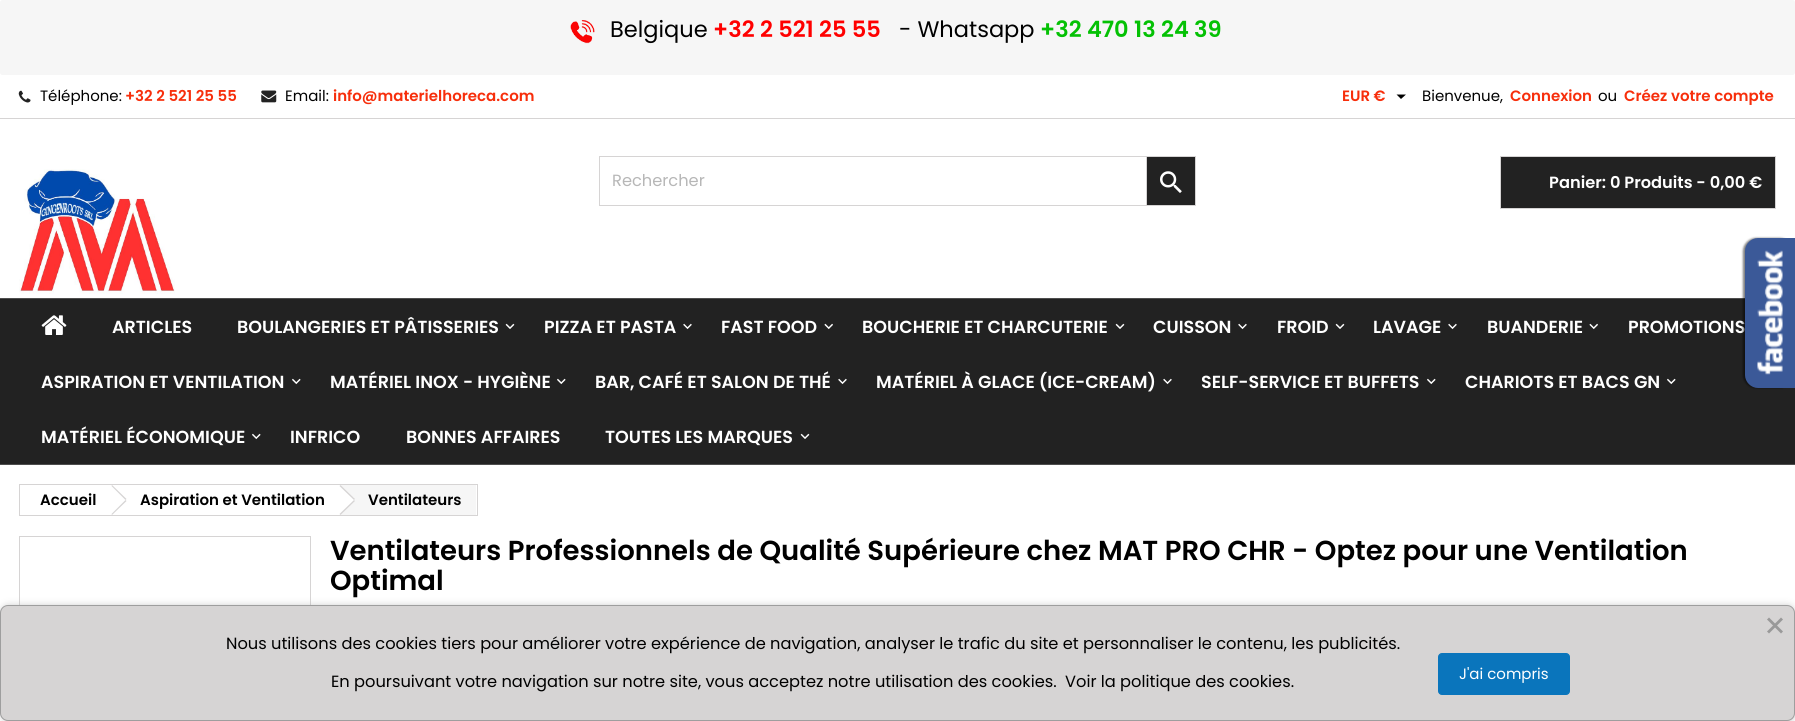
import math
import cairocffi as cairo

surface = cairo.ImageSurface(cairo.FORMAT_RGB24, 1795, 721)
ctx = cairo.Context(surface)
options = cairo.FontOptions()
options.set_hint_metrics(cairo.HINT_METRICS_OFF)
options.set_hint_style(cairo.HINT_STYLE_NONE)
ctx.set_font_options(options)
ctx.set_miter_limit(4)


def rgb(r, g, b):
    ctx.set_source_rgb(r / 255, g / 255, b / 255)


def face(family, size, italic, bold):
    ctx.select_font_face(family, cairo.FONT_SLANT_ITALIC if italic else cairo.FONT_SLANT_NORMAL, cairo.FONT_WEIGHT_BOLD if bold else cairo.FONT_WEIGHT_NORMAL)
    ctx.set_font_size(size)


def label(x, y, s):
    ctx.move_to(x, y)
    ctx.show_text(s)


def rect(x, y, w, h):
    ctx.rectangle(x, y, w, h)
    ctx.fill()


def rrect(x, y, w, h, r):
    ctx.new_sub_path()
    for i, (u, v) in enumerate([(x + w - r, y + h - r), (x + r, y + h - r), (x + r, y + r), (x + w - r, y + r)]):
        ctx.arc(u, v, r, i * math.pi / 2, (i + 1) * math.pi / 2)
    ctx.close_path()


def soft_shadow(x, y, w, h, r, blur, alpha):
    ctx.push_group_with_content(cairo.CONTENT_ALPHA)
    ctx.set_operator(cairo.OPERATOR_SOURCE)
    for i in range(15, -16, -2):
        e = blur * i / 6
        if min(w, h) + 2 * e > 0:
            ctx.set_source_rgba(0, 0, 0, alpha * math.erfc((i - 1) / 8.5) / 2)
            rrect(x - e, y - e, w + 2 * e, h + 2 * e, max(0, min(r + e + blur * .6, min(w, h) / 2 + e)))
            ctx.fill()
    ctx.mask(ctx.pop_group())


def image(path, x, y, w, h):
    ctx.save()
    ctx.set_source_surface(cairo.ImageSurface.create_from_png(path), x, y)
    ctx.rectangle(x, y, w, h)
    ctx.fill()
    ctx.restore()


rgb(255, 255, 255)
ctx.paint()
rgb(246, 246, 246)
rrect(0, 0, 1795, 75, 2.5)
ctx.fill()
image('image0.png', 570, 20, 25, 24)
face('Poppins', 22.5, 0, 0)
rgb(0, 0, 0)
label(610, 37, 'Belgique')
face('Poppins SemiBold', 22.5, 0, 0)
rgb(255, 0, 0)
label(713, 37, '+32 2 521 25 55')
face('Poppins', 22.5, 0, 0)
rgb(0, 0, 0)
label(899, 37, '- Whatsapp')
face('Poppins SemiBold', 22.5, 0, 0)
rgb(4, 193, 4)
label(1040, 37, '+32 470 13 24 39')
rgb(214, 212, 212)
rect(0, 118, 1795, 1)
image('image1.png', 18, 90, 13, 13)
face('Poppins', 15, 0, 0)
rgb(0, 0, 0)
label(40, 101, 'Téléphone:')
face('Poppins SemiBold', 15, 0, 0)
rgb(247, 46, 11)
label(125, 101, '+32 2 521 25 55')
image('image2.png', 261, 90, 16, 13)
face('Poppins', 15, 0, 0)
rgb(0, 0, 0)
label(285, 101, 'Email:')
face('Poppins SemiBold', 15, 0, 0)
rgb(247, 46, 11)
label(333, 101, 'info@materielhoreca.com')
label(1342, 101, 'EUR €')
rgb(0, 0, 0)
ctx.new_path()
ctx.move_to(1396.5, 94.5)
ctx.line_to(1406, 94.5)
ctx.line_to(1401, 99)
ctx.close_path()
ctx.fill()
face('Poppins', 15, 0, 0)
label(1422, 101, 'Bienvenue,')
face('Poppins SemiBold', 15, 0, 0)
rgb(247, 46, 11)
label(1510, 101, 'Connexion')
face('Poppins', 15, 0, 0)
rgb(0, 0, 0)
label(1598, 101, 'ou')
face('Poppins SemiBold', 15, 0, 0)
rgb(247, 46, 11)
label(1624, 101, 'Créez votre compte')
image('image3.png', 19, 169, 156, 125)
ctx.rectangle(599.5, 156.5, 596, 49)
rgb(214, 212, 212)
ctx.set_line_width(1)
ctx.stroke()
face('Poppins', 16.25, 0, 0)
rgb(183, 183, 183)
label(612, 186, 'Rechercher')
rgb(34, 34, 34)
ctx.rectangle(1146.5, 156.5, 49, 49)
ctx.fill_preserve()
rgb(214, 212, 212)
ctx.stroke()
image('image4.png', 1160, 171, 22, 22)
rgb(34, 34, 34)
ctx.rectangle(1500.5, 156.5, 275, 52)
ctx.fill_preserve()
rgb(214, 212, 212)
ctx.stroke()
face('Poppins SemiBold', 16.25, 0, 0)
rgb(255, 255, 255)
label(1549, 188, 'Panier: 0 Produits - 0,00 €')
rgb(34, 34, 34)
rect(0, 299, 1795, 165)
rgb(77, 77, 77)
rect(0, 298, 1745, 1)
rect(0, 464, 1795, 1)
image('image5.png', 41, 315, 26, 20)
face('Poppins SemiBold', 17.5, 0, 0)
rgb(255, 255, 255)
label(112, 333, 'ARTICLES')
label(237, 333, 'BOULANGERIES ET PÂTISSERIES')
image('image6.png', 505, 323, 10, 6)
label(544, 333, 'PIZZA ET PASTA')
image('image7.png', 683, 323, 9, 7)
label(721, 333, 'FAST FOOD')
image('image8.png', 824, 323, 9, 7)
label(862, 333, 'BOUCHERIE ET CHARCUTERIE')
image('image6.png', 1115, 323, 10, 6)
label(1153, 333, 'CUISSON')
image('image7.png', 1238, 323, 9, 7)
label(1277, 333, 'FROID')
image('image6.png', 1335, 323, 10, 6)
label(1373, 333, 'LAVAGE')
image('image7.png', 1448, 323, 9, 7)
label(1487, 333, 'BUANDERIE')
image('image8.png', 1589, 323, 9, 7)
label(1628, 333, 'PROMOTIONS')
label(41, 388, 'ASPIRATION ET VENTILATION')
image('image9.png', 292, 378, 9, 7)
label(330, 388, 'MATÉRIEL INOX - HYGIÈNE')
image('image9.png', 557, 378, 9, 7)
label(595, 388, 'BAR, CAFÉ ET SALON DE THÉ')
image('image7.png', 838, 378, 9, 7)
label(876, 388, 'MATÉRIEL À GLACE (ICE-CREAM)')
image('image7.png', 1163, 378, 9, 7)
label(1201, 388, 'SELF-SERVICE ET BUFFETS')
image('image9.png', 1427, 378, 9, 7)
label(1465, 388, 'CHARIOTS ET BACS GN')
image('image9.png', 1667, 378, 9, 7)
label(41, 443, 'MATÉRIEL ÉCONOMIQUE')
image('image9.png', 252, 433, 9, 7)
label(290, 443, 'INFRICO')
label(406, 443, 'BONNES AFFAIRES')
label(605, 443, 'TOUTES LES MARQUES')
image('image6.png', 800, 433, 10, 6)
rgb(0, 0, 0)
soft_shadow(1743, 238, 50, 150, 13, 1, 0.5)
rgb(59, 89, 152)
ctx.new_path()
ctx.move_to(1758, 238)
ctx.line_to(1795, 238)
ctx.line_to(1795, 388)
ctx.line_to(1758, 388)
ctx.curve_to(1751, 388, 1745, 382, 1745, 375)
ctx.line_to(1745, 251)
ctx.curve_to(1745, 244, 1751, 238, 1758, 238)
ctx.close_path()
ctx.fill()
image('image10.png', 1757, 250, 26, 125)
ctx.rectangle(19.5, 484.5, 458, 31)
rgb(214, 212, 212)
ctx.stroke()
face('Poppins SemiBold', 15, 0, 0)
rgb(0, 0, 0)
label(40, 505, 'Accueil')
rgb(214, 212, 212)
ctx.new_path()
ctx.move_to(112, 485)
ctx.line_to(126.5, 499)
ctx.line_to(125.5, 500)
ctx.line_to(111.5, 486)
ctx.close_path()
ctx.move_to(125.5, 500)
ctx.line_to(126.5, 501)
ctx.line_to(112, 515)
ctx.line_to(111.5, 514)
ctx.close_path()
ctx.fill()
rgb(0, 0, 0)
label(140, 505, 'Aspiration et Ventilation')
rgb(246, 246, 246)
rect(341, 485, 135, 30)
rgb(255, 255, 255)
ctx.new_path()
ctx.move_to(341.5, 486)
ctx.line_to(354, 498)
ctx.curve_to(355, 499, 355, 501, 354, 502)
ctx.line_to(341.5, 514)
ctx.curve_to(340.5, 515, 339, 515, 338, 514)
ctx.line_to(325.5, 502)
ctx.curve_to(324.5, 501, 324.5, 499, 325.5, 498)
ctx.line_to(338, 486)
ctx.curve_to(339, 485, 340.5, 485, 341.5, 486)
ctx.close_path()
ctx.fill()
rgb(214, 212, 212)
ctx.new_path()
ctx.move_to(340.5, 485)
ctx.line_to(355, 499)
ctx.line_to(354, 500)
ctx.line_to(339.5, 486)
ctx.close_path()
ctx.move_to(354, 500)
ctx.line_to(355, 501)
ctx.line_to(340.5, 515)
ctx.line_to(339.5, 514)
ctx.close_path()
ctx.fill()
rgb(0, 0, 0)
label(368, 505, 'Ventilateurs')
ctx.rectangle(19.5, 536.5, 291, 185)
rgb(214, 212, 212)
ctx.stroke()
face('Poppins SemiBold', 27.5, 0, 0)
rgb(0, 0, 0)
label(330, 560, 'Ventilateurs Professionnels de Qualité Supérieure chez MAT PRO CHR - Optez pour une Ventilation')
label(330, 590, 'Optimal')
rgb(158, 158, 158)
soft_shadow(3, 608, 1790, 111, 5, 4.5, 1)
rgb(214, 212, 212)
rrect(0.5, 605.5, 1794, 115, 7.5)
ctx.fill_preserve()
rgb(158, 158, 158)
ctx.stroke()
rgb(153, 153, 153)
ctx.new_path()
ctx.move_to(1767, 631.5)
ctx.line_to(1781, 617.5)
ctx.line_to(1783, 619.5)
ctx.line_to(1769, 633.5)
ctx.close_path()
ctx.fill()
ctx.new_path()
ctx.move_to(1769, 617.5)
ctx.line_to(1783, 631.5)
ctx.line_to(1781, 633.5)
ctx.line_to(1767, 619.5)
ctx.close_path()
ctx.fill()
face('Poppins', 16.25, 0, 0)
rgb(0, 0, 0)
label(226, 649, 'Nous utilisons des cookies tiers pour améliorer votre expérience de navigation, analyser le trafic du site et personnaliser le contenu, les publicités.')
label(331, 687, 'En poursuivant votre navigation sur notre site, vous acceptez notre utilisation des cookies.')
label(1065, 687, 'Voir la politique des cookies.')
rgb(10, 117, 188)
rrect(1438.5, 653.5, 131, 41, 3.5)
ctx.fill_preserve()
ctx.stroke()
face('Poppins', 15, 0, 0)
rgb(255, 255, 255)
label(1459, 679, 'J\'ai compris')
surface.write_to_png('render.png')
